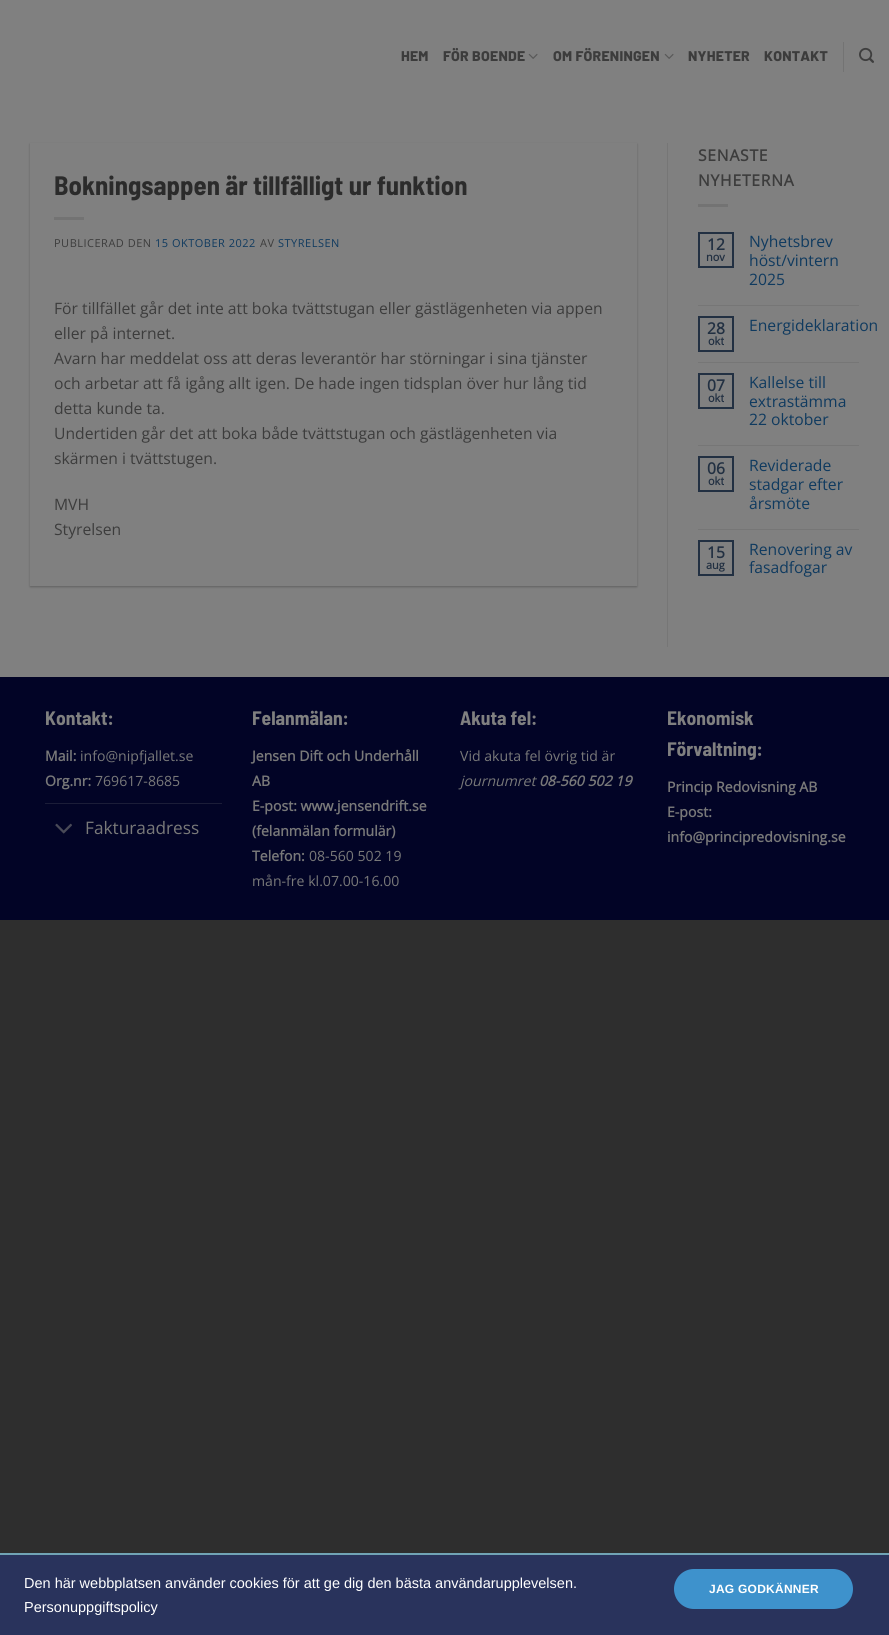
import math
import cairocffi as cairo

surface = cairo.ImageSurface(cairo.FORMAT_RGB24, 889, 1635)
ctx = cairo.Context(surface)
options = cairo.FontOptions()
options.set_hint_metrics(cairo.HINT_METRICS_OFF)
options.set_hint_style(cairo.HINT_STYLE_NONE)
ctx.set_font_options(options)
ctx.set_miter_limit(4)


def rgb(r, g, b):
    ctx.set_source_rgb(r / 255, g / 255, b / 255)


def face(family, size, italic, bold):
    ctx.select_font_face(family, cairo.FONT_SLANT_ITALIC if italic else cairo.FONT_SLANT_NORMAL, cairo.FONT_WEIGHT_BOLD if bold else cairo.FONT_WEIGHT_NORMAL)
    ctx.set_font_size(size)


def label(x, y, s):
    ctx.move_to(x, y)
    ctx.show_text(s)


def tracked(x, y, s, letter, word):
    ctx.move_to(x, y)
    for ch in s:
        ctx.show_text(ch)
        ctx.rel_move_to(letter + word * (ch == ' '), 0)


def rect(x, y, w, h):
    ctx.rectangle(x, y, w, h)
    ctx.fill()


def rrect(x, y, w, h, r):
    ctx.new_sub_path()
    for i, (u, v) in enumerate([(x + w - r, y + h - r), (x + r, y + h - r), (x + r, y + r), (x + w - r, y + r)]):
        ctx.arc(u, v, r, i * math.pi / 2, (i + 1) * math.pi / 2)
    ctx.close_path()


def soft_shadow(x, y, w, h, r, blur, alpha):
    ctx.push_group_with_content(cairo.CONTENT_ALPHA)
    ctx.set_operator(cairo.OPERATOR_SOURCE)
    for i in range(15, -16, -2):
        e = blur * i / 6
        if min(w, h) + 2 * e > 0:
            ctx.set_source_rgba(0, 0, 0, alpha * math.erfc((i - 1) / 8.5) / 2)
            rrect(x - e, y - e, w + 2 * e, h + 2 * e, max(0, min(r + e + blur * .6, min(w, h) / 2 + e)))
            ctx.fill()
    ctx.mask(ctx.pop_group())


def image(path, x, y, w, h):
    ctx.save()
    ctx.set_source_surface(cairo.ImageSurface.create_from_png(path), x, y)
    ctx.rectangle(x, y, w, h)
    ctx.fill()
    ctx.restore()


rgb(46, 46, 46)
ctx.paint()
rgb(128, 128, 128)
rect(0, 0, 889, 677)
face('Barlow ExtraBold', 14.1, 0, 0)
rgb(60, 60, 60)
tracked(401, 61, 'HEM', 0.25, 0)
tracked(443, 61, 'FÖR BOENDE', 0.25, 0)
image('image0.png', 528, 53, 10, 6)
tracked(553, 61, 'OM FÖRENINGEN', 0.25, 0)
image('image0.png', 664, 53, 10, 6)
tracked(688, 61, 'NYHETER', 0.25, 0)
tracked(764, 61, 'KONTAKT', 0.25, 0)
rgb(115, 115, 115)
rect(843, 42, 1, 30)
image('image1.png', 859, 47, 15, 16)
ctx.save()
ctx.set_fill_rule(cairo.FILL_RULE_EVEN_ODD)
ctx.new_path()
ctx.move_to(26, 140)
ctx.line_to(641, 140)
ctx.line_to(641, 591)
ctx.line_to(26, 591)
ctx.close_path()
ctx.move_to(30, 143)
ctx.line_to(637, 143)
ctx.line_to(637, 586)
ctx.line_to(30, 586)
ctx.close_path()
ctx.clip()
rgb(0, 0, 0)
soft_shadow(30, 144, 607, 443, 0, 1, 0.24)
ctx.restore()
face('Barlow Semi Condensed', 26.7, 0, 1)
rgb(43, 43, 43)
label(54, 195, 'Bokningsappen är tillfälligt ur funktion')
rgb(115, 115, 115)
rect(54, 217, 30, 3)
face('Open Sans', 11, 0, 0)
rgb(60, 60, 60)
tracked(54, 247, 'PUBLICERAD DEN', 0.5, 0)
rgb(15, 58, 95)
tracked(155, 247, '15 OKTOBER 2022', 0.5, 0)
rgb(60, 60, 60)
tracked(260, 247, 'AV', 0.5, 0)
rgb(15, 58, 95)
tracked(278, 247, 'STYRELSEN', 0.5, 0)
face('Open Sans', 15.7, 0, 0)
rgb(60, 60, 60)
label(54, 314, 'För tillfället går det inte att boka tvättstugan eller gästlägenheten via appen')
label(54, 339, 'eller på internet.')
label(54, 364, 'Avarn har meddelat oss att deras leverantör har störningar i sina tjänster')
label(54, 389, 'och arbetar att få igång allt igen. De hade ingen tidsplan över hur lång tid')
label(54, 414, 'detta kunde ta.')
label(54, 439, 'Undertiden går det att boka både tvättstugan och gästlägenheten via')
label(54, 464, 'skärmen i tvättstugen.')
label(54, 510, 'MVH')
label(54, 535, 'Styrelsen')
rgb(118, 118, 118)
rect(667, 143, 1, 504)
face('Open Sans', 15.7, 0, 1)
rgb(60, 60, 60)
tracked(698, 161, 'SENASTE', 0.75, 0)
tracked(698, 186, 'NYHETERNA', 0.75, 0)
rgb(115, 115, 115)
rect(698, 204, 30, 3)
ctx.rectangle(699, 233, 34, 34)
rgb(34, 48, 66)
ctx.stroke()
label(707, 250, '12')
face('Open Sans', 11, 0, 1)
label(706, 261, 'nov')
face('Open Sans', 15.7, 0, 0)
rgb(15, 58, 95)
label(749, 247, 'Nyhetsbrev')
label(749, 266, 'höst/vintern')
label(749, 285, '2025')
rgb(118, 118, 118)
rect(698, 305, 161, 1)
ctx.rectangle(699, 317, 34, 34)
rgb(34, 48, 66)
ctx.stroke()
face('Open Sans', 15.7, 0, 1)
label(707, 334, '28')
face('Open Sans', 11, 0, 1)
label(708, 345, 'okt')
face('Open Sans', 15.7, 0, 0)
rgb(15, 58, 95)
label(749, 331, 'Energideklaration')
rgb(118, 118, 118)
rect(698, 362, 161, 1)
ctx.rectangle(699, 374, 34, 34)
rgb(34, 48, 66)
ctx.stroke()
face('Open Sans', 15.7, 0, 1)
label(707, 391, '07')
face('Open Sans', 11, 0, 1)
label(708, 402, 'okt')
face('Open Sans', 15.7, 0, 0)
rgb(15, 58, 95)
label(749, 388, 'Kallelse till')
label(749, 407, 'extrastämma')
label(749, 425, '22 oktober')
rgb(118, 118, 118)
rect(698, 445, 161, 1)
ctx.rectangle(699, 457, 34, 34)
rgb(34, 48, 66)
ctx.stroke()
face('Open Sans', 15.7, 0, 1)
label(707, 474, '06')
face('Open Sans', 11, 0, 1)
label(708, 485, 'okt')
face('Open Sans', 15.7, 0, 0)
rgb(15, 58, 95)
label(749, 471, 'Reviderade')
label(749, 490, 'stadgar efter')
label(749, 509, 'årsmöte')
rgb(118, 118, 118)
rect(698, 529, 161, 1)
ctx.rectangle(699, 541, 34, 34)
rgb(34, 48, 66)
ctx.stroke()
face('Open Sans', 15.7, 0, 1)
label(707, 558, '15')
face('Open Sans', 11, 0, 1)
label(706, 569, 'aug')
face('Open Sans', 15.7, 0, 0)
rgb(15, 58, 95)
label(749, 555, 'Renovering av')
label(749, 573, 'fasadfogar')
rgb(2, 4, 38)
rect(0, 677, 889, 243)
face('Barlow Semi Condensed', 19.5, 0, 1)
rgb(128, 128, 128)
label(45, 725, 'Kontakt:')
face('Open Sans', 14.1, 0, 1)
rgb(121, 121, 121)
label(45, 761, 'Mail:')
face('Open Sans', 14.1, 0, 0)
label(80, 761, 'info@nipfjallet.se')
face('Open Sans', 14.1, 0, 1)
label(45, 786, 'Org.nr:')
face('Open Sans', 14.1, 0, 0)
label(95, 786, '769617-8685')
rgb(27, 29, 56)
rect(45, 803, 177, 1)
image('image2.png', 55, 823, 17, 11)
face('Open Sans', 17.25, 0, 0)
rgb(121, 121, 121)
label(85, 834, 'Fakturaadress')
face('Barlow Semi Condensed', 19.5, 0, 1)
rgb(128, 128, 128)
label(252, 725, 'Felanmälan:')
face('Open Sans', 14.1, 0, 1)
rgb(121, 121, 121)
label(252, 761, 'Jensen Dift och Underhåll')
label(252, 786, 'AB')
label(252, 811, 'E-post: www.jensendrift.se')
label(252, 836, '(felanmälan formulär)')
label(252, 861, 'Telefon:')
face('Open Sans', 14.1, 0, 0)
label(309, 861, '08-560 502 19')
label(252, 886, 'mån-fre kl.07.00-16.00')
face('Barlow Semi Condensed', 19.5, 0, 1)
rgb(128, 128, 128)
label(460, 725, 'Akuta fel:')
face('Open Sans', 14.1, 0, 0)
rgb(121, 121, 121)
label(460, 761, 'Vid akuta fel övrig tid är')
face('Open Sans', 14.1, 1, 0)
label(460, 786, 'journumret')
face('Open Sans', 14.1, 1, 1)
label(539, 786, '08-560 502 19')
face('Barlow Semi Condensed', 19.5, 0, 1)
rgb(128, 128, 128)
label(667, 725, 'Ekonomisk')
label(667, 756, 'Förvaltning:')
face('Open Sans', 14.1, 0, 1)
rgb(121, 121, 121)
label(667, 792, 'Princip Redovisning AB')
label(667, 817, 'E-post:')
label(667, 842, 'info@principredovisning.se')
rgb(41, 51, 92)
rect(0, 1555, 889, 80)
rgb(113, 164, 181)
rect(0, 1553, 889, 2)
face('Liberation Sans', 14.5, 0, 0)
rgb(255, 255, 255)
label(24, 1588, 'Den här webbplatsen använder cookies för att ge dig den bästa användarupplevelsen.')
label(24, 1612, 'Personuppgiftspolicy')
rgb(62, 146, 204)
rrect(674, 1569, 179, 40, 20)
ctx.fill()
face('Liberation Sans', 12, 0, 1)
rgb(255, 255, 255)
tracked(709, 1593, 'JAG GODKÄNNER', 0.25, 0)
surface.write_to_png('render.png')
